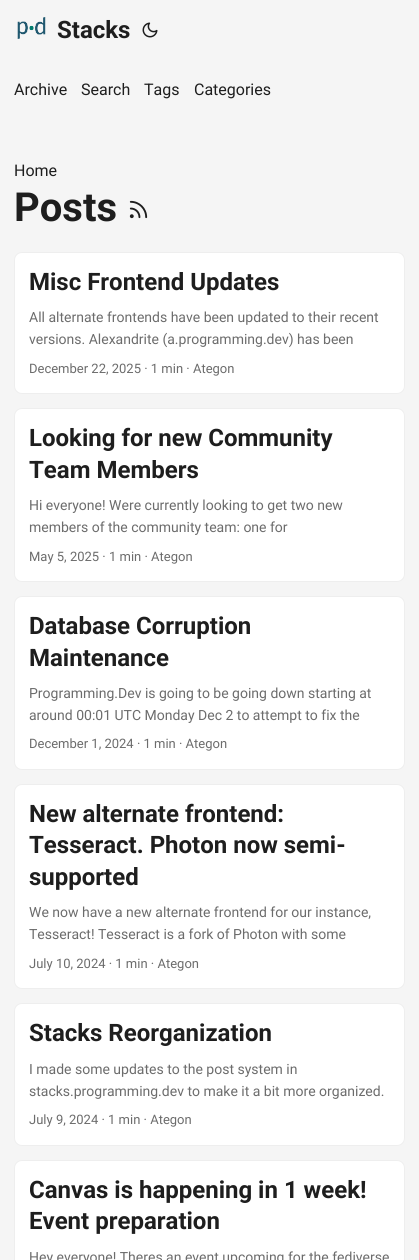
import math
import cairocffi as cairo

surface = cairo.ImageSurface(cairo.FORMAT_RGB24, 419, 1260)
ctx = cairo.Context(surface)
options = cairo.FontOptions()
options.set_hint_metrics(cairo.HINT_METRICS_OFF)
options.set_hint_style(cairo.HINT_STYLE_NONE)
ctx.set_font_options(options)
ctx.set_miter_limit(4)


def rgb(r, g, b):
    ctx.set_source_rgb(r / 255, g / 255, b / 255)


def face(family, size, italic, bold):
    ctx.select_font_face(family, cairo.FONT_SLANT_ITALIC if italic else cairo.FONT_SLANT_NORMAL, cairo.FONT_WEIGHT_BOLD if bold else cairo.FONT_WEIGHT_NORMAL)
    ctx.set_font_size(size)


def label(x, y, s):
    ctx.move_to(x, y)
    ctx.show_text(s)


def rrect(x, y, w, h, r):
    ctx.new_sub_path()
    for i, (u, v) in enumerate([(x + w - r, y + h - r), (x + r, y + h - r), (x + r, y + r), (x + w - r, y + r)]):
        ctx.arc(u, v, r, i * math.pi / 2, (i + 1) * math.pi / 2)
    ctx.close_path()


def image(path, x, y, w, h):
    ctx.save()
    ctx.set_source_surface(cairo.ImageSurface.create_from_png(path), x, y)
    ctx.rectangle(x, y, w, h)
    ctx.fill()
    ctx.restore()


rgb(245, 245, 245)
ctx.paint()
image('image0.png', 17, 17, 29, 22)
face('Roboto', 24, 0, 1)
rgb(30, 30, 30)
label(57, 38, 'Stacks')
image('image1.png', 142, 22, 16, 16)
face('Roboto', 16, 0, 0)
label(14, 95, 'Archive')
label(81, 95, 'Search')
label(144, 95, 'Tags')
label(194, 95, 'Categories')
label(14, 176, 'Home')
face('Roboto', 40, 0, 1)
label(14, 221, 'Posts')
image('image2.png', 129, 200, 19, 19)
rgb(255, 255, 255)
rrect(14.5, 252.5, 390, 141, 7.5)
ctx.fill_preserve()
rgb(238, 238, 238)
ctx.set_line_width(1)
ctx.stroke()
face('Roboto', 24, 0, 1)
rgb(30, 30, 30)
label(29, 290, 'Misc Frontend Updates')
face('Roboto', 14, 0, 0)
rgb(108, 108, 108)
label(29, 322, 'All alternate frontends have been updated to their recent')
label(29, 344, 'versions. Alexandrite (a.programming.dev) has been')
face('Roboto', 13, 0, 0)
label(29, 373, 'December 22, 2025 · 1 min · Ategon')
rgb(255, 255, 255)
rrect(14.5, 408.5, 390, 173, 7.5)
ctx.fill_preserve()
rgb(238, 238, 238)
ctx.stroke()
face('Roboto', 24, 0, 1)
rgb(30, 30, 30)
label(29, 446, 'Looking for new Community')
label(29, 478, 'Team Members')
face('Roboto', 14, 0, 0)
rgb(108, 108, 108)
label(29, 510, 'Hi everyone! Were currently looking to get two new')
label(29, 532, 'members of the community team: one for')
face('Roboto', 13, 0, 0)
label(29, 561, 'May 5, 2025 · 1 min · Ategon')
rgb(255, 255, 255)
rrect(14.5, 596.5, 390, 173, 7.5)
ctx.fill_preserve()
rgb(238, 238, 238)
ctx.stroke()
face('Roboto', 24, 0, 1)
rgb(30, 30, 30)
label(29, 634, 'Database Corruption')
label(29, 666, 'Maintenance')
face('Roboto', 14, 0, 0)
rgb(108, 108, 108)
label(29, 698, 'Programming.Dev is going to be going down starting at')
label(29, 720, 'around 00:01 UTC Monday Dec 2 to attempt to fix the')
face('Roboto', 13, 0, 0)
label(29, 748, 'December 1, 2024 · 1 min · Ategon')
rgb(255, 255, 255)
rrect(14.5, 784.5, 390, 204, 7.5)
ctx.fill_preserve()
rgb(238, 238, 238)
ctx.stroke()
face('Roboto', 24, 0, 1)
rgb(30, 30, 30)
label(29, 822, 'New alternate frontend:')
label(29, 853, 'Tesseract. Photon now semi-')
label(29, 885, 'supported')
face('Roboto', 14, 0, 0)
rgb(108, 108, 108)
label(29, 917, 'We now have a new alternate frontend for our instance,')
label(29, 939, 'Tesseract! Tesseract is a fork of Photon with some')
face('Roboto', 13, 0, 0)
label(29, 968, 'July 10, 2024 · 1 min · Ategon')
rgb(255, 255, 255)
rrect(14.5, 1003.5, 390, 142, 7.5)
ctx.fill_preserve()
rgb(238, 238, 238)
ctx.stroke()
face('Roboto', 24, 0, 1)
rgb(30, 30, 30)
label(29, 1041, 'Stacks Reorganization')
face('Roboto', 14, 0, 0)
rgb(108, 108, 108)
label(29, 1074, 'I made some updates to the post system in')
label(29, 1096, 'stacks.programming.dev to make it a bit more organized.')
face('Roboto', 13, 0, 0)
label(29, 1124, 'July 9, 2024 · 1 min · Ategon')
rgb(255, 255, 255)
rrect(14.5, 1160.5, 390, 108, 7.5)
ctx.fill_preserve()
rgb(238, 238, 238)
ctx.stroke()
face('Roboto', 24, 0, 1)
rgb(30, 30, 30)
label(29, 1198, 'Canvas is happening in 1 week!')
label(29, 1229, 'Event preparation')
face('Roboto', 14, 0, 0)
rgb(108, 108, 108)
label(29, 1262, 'Hey everyone! Theres an event upcoming for the fediverse')
surface.write_to_png('render.png')
